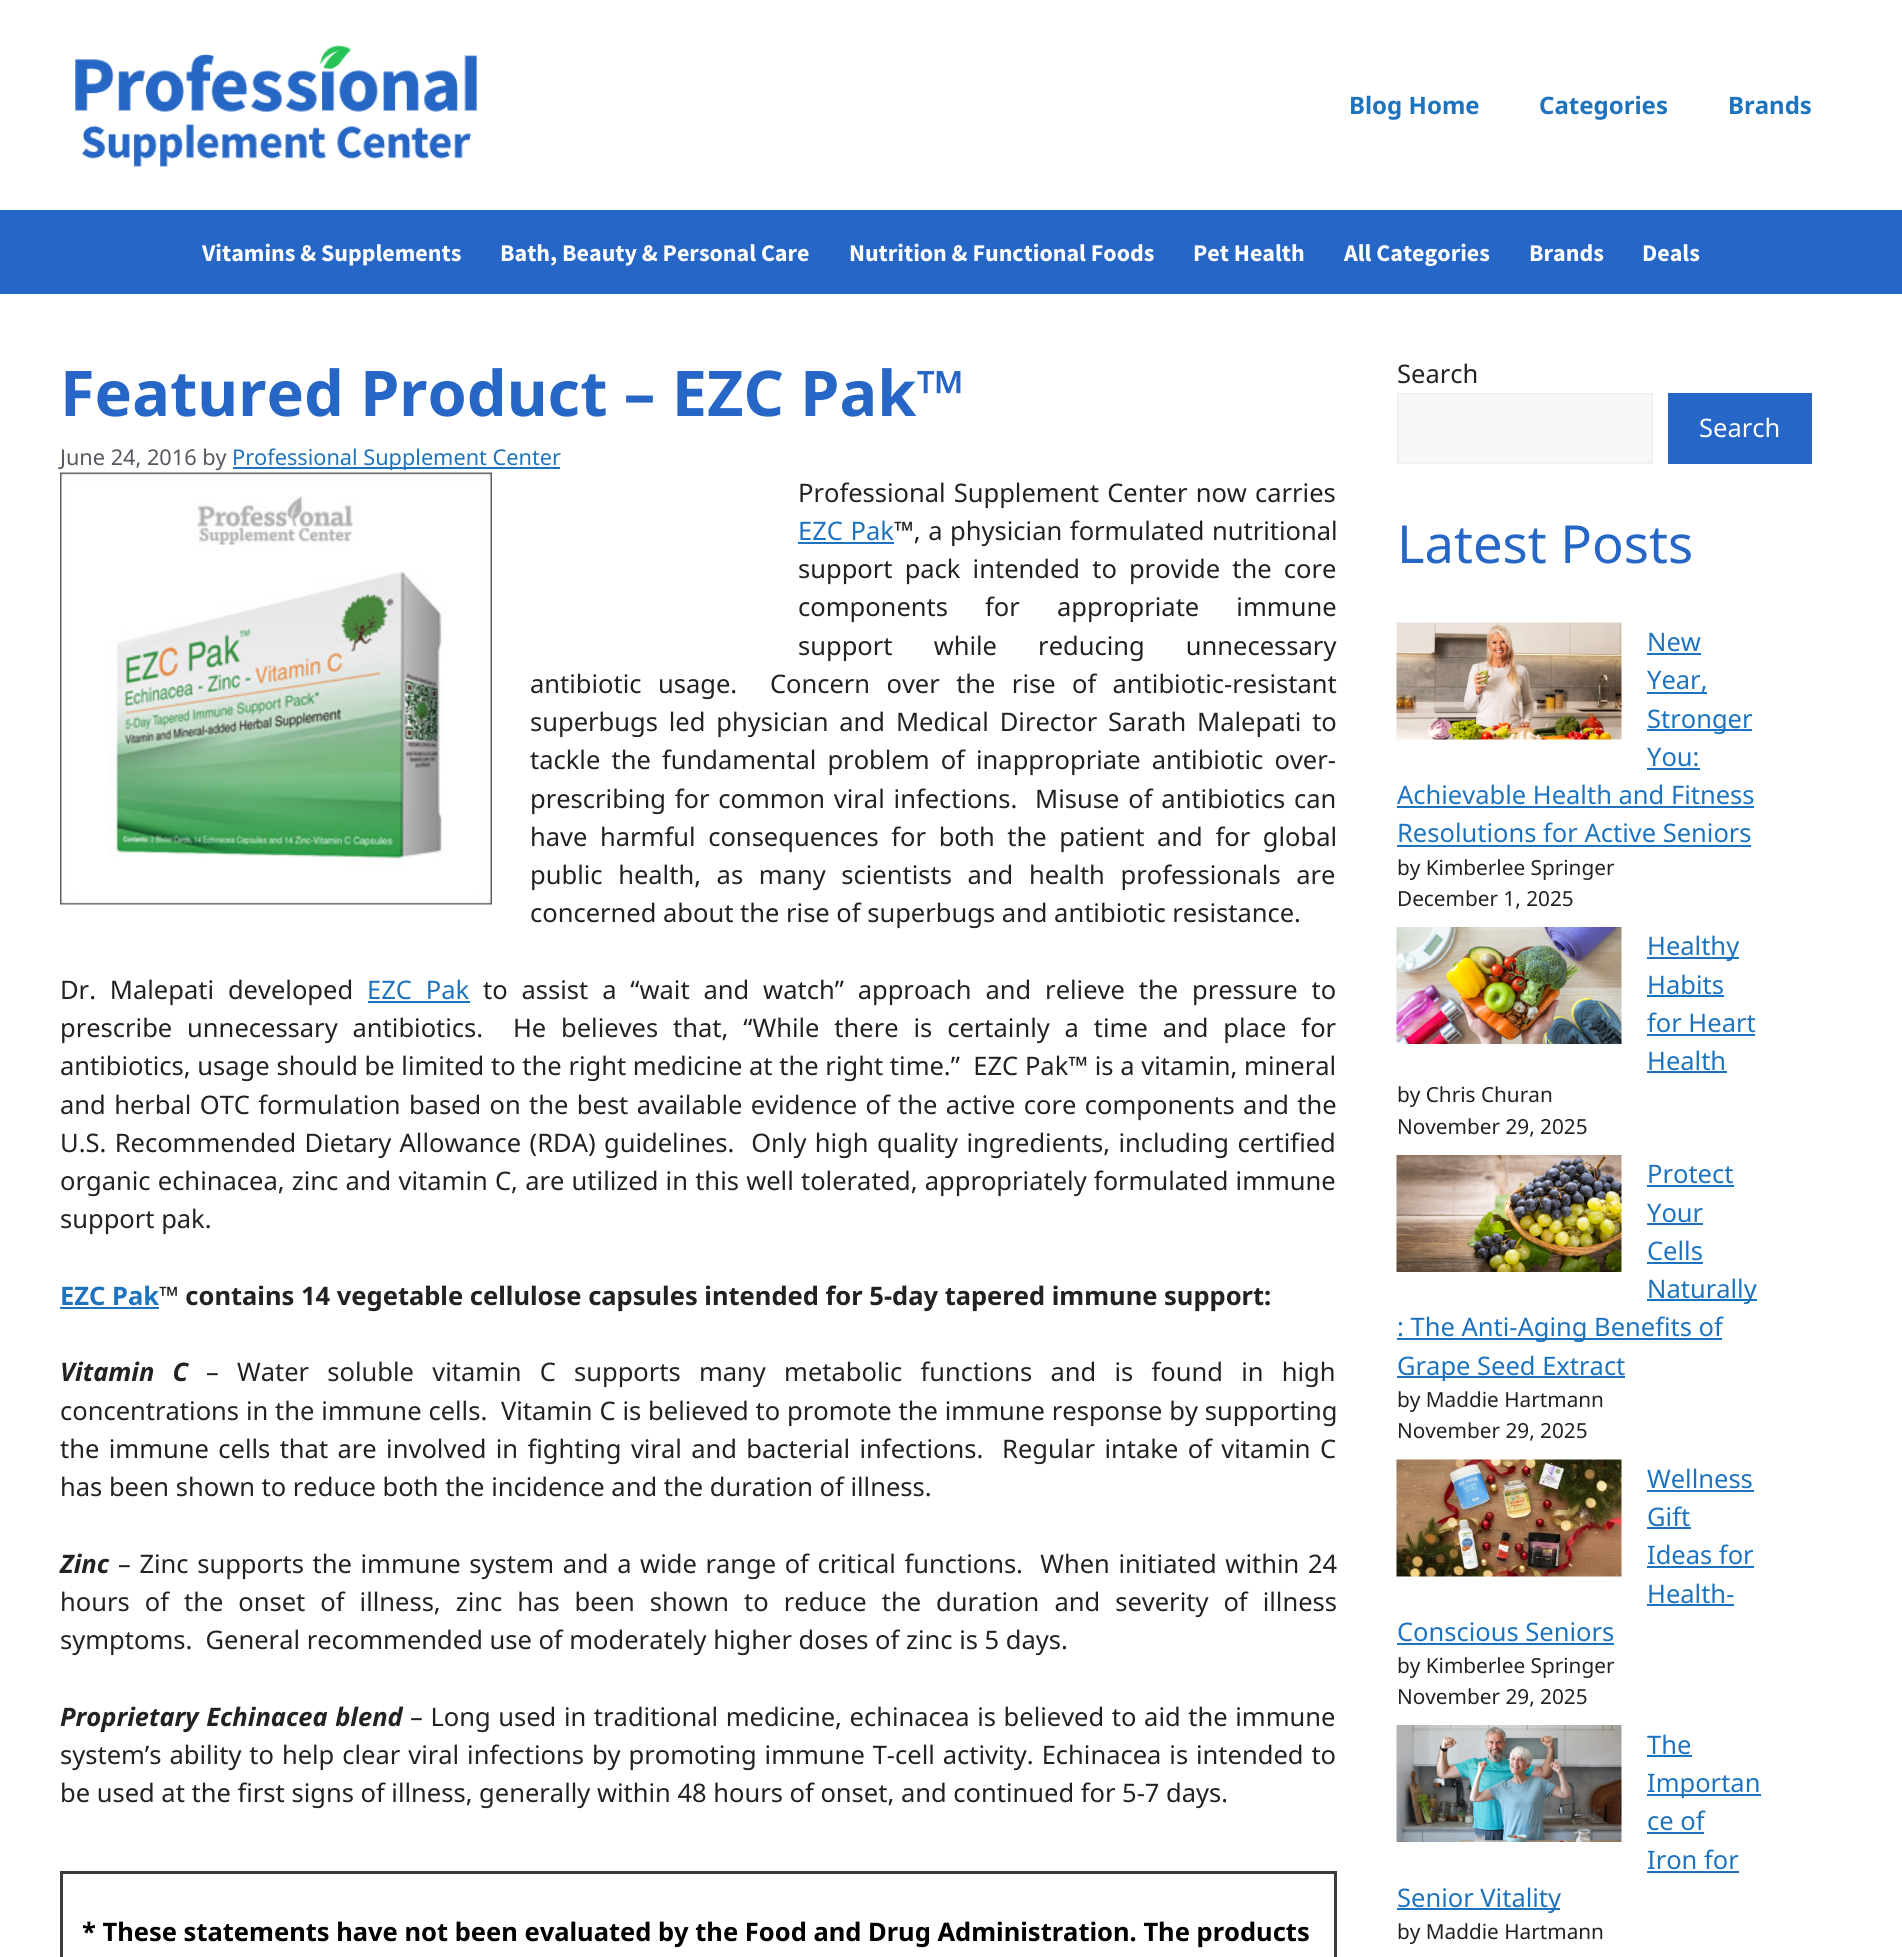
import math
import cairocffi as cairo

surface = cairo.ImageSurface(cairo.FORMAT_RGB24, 1902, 1957)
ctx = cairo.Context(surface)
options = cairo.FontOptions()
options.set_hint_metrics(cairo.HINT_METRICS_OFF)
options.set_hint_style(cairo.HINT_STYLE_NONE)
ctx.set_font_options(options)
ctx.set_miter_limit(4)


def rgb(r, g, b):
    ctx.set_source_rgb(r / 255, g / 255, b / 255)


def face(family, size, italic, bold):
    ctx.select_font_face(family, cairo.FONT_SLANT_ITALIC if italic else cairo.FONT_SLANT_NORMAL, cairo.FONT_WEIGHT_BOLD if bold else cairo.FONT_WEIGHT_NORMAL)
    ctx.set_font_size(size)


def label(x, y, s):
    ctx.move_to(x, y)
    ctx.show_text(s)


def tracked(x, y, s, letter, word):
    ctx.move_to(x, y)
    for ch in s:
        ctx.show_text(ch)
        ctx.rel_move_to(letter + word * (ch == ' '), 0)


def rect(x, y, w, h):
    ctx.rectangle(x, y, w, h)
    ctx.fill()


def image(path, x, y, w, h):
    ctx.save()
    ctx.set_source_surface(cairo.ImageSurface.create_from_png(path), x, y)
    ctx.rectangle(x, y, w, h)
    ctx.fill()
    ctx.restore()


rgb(255, 255, 255)
ctx.paint()
image('image0.png', 75, 45, 403, 122)
face('Noto Sans', 24, 0, 1)
rgb(30, 115, 190)
label(1349, 114, 'Blog Home')
label(1539, 114, 'Categories')
label(1728, 114, 'Brands')
rgb(38, 102, 198)
rect(0, 210, 1902, 84)
face('Source Sans Pro', 24, 0, 1)
rgb(255, 255, 255)
label(202, 261, 'Vitamins & Supplements')
label(500, 261, 'Bath, Beauty & Personal Care')
label(849, 261, 'Nutrition & Functional Foods')
label(1193, 261, 'Pet Health')
label(1344, 261, 'All Categories')
label(1529, 261, 'Brands')
label(1642, 261, 'Deals')
face('Noto Sans', 63, 0, 1)
rgb(38, 102, 198)
label(60, 416, 'Featured Product – EZC Pak™')
face('Noto Sans', 21.7, 0, 0)
rgb(87, 87, 96)
label(60, 465, 'June 24, 2016 by')
rgb(30, 115, 190)
rect(233, 467, 327, 2)
label(232, 465, 'Professional Supplement Center')
image('image1.png', 60, 472, 432, 433)
face('Noto Sans', 25.5, 0, 0)
rgb(34, 34, 34)
tracked(798, 502, 'Professional Supplement Center now carries', 0, 1.5)
rgb(30, 115, 190)
tracked(798, 540, 'EZC Pak', 0, 1)
rect(798, 542, 96, 2)
rgb(34, 34, 34)
tracked(894, 540, '™, a physician formulated nutritional', 0, 1)
tracked(798, 578, 'support pack intended to provide the core', 0, 5.5)
tracked(798, 616, 'components for appropriate immune', 0, 30.5)
tracked(798, 655, 'support while reducing unnecessary', 0, 34.5)
tracked(530, 693, 'antibiotic usage.  Concern over the rise of antibiotic-resistant', 0, 9.75)
tracked(530, 731, 'superbugs led physician and Medical Director Sarath Malepati to', 0, 4.25)
tracked(530, 769, 'tackle the fundamental problem of inappropriate antibiotic over-', 0, 4.5)
tracked(530, 808, 'prescribing for common viral infections.  Misuse of antibiotics can', 0, 2.25)
tracked(530, 846, 'have harmful consequences for both the patient and for global', 0, 6)
tracked(530, 884, 'public health, as many scientists and health professionals are', 0, 9)
label(530, 922, 'concerned about the rise of superbugs and antibiotic resistance.')
tracked(60, 999, 'Dr. Malepati developed', 0, 7.25)
rgb(30, 115, 190)
tracked(367, 999, 'EZC Pak', 0, 7.25)
rect(368, 1001, 102, 2)
rgb(34, 34, 34)
tracked(483, 999, 'to assist a “wait and watch” approach and relieve the pressure to', 0, 7.25)
tracked(60, 1037, 'prescribe unnecessary antibiotics.  He believes that, “While there is certainly a time and place for', 0, 8.25)
tracked(60, 1075, 'antibiotics, usage should be limited to the right medicine at the right time.”  EZC Pak™ is a vitamin, mineral', 0, 0.1)
tracked(60, 1114, 'and herbal OTC formulation based on the best available evidence of the active core components and the', 0, 1.75)
tracked(60, 1152, 'U.S. Recommended Dietary Allowance (RDA) guidelines.  Only high quality ingredients, including certified', 0, 1.75)
tracked(60, 1190, 'organic echinacea, zinc and vitamin C, are utilized in this well tolerated, appropriately formulated immune', 0, 0.6)
label(60, 1228, 'support pak.')
face('Noto Sans', 25.5, 0, 1)
rgb(30, 115, 190)
label(60, 1305, 'EZC Pak')
rgb(34, 34, 34)
label(159, 1305, '™ contains 14 vegetable cellulose capsules intended for 5-day tapered immune support:')
rgb(30, 115, 190)
rect(60, 1307, 99, 2)
face('Noto Sans', 25.5, 1, 1)
rgb(34, 34, 34)
tracked(60, 1381, 'Vitamin C', 0, 11.6)
face('Noto Sans', 25.5, 0, 0)
tracked(206, 1381, '– Water soluble vitamin C supports many metabolic functions and is found in high', 0, 11.6)
tracked(60, 1420, 'concentrations in the immune cells.  Vitamin C is believed to promote the immune response by supporting', 0, 0.25)
tracked(60, 1458, 'the immune cells that are involved in fighting viral and bacterial infections.  Regular intake of vitamin C', 0, 2.75)
label(60, 1496, 'has been shown to reduce both the incidence and the duration of illness.')
face('Noto Sans', 25.5, 1, 1)
label(60, 1573, 'Zinc')
face('Noto Sans', 25.5, 0, 0)
tracked(118, 1573, '– Zinc supports the immune system and a wide range of critical functions.  When initiated within 24', 0, 2)
tracked(60, 1611, 'hours of the onset of illness, zinc has been shown to reduce the duration and severity of illness', 0, 8.4)
label(60, 1649, 'symptoms.  General recommended use of moderately higher doses of zinc is 5 days.')
face('Noto Sans', 25.5, 1, 1)
tracked(60, 1726, 'Proprietary Echinacea blend', 0, 1)
face('Noto Sans', 25.5, 0, 0)
tracked(410, 1726, '– Long used in traditional medicine, echinacea is believed to aid the immune', 0, 1)
tracked(60, 1764, 'system’s ability to help clear viral infections by promoting immune T-cell activity. Echinacea is intended to', 0, 1.3)
label(60, 1802, 'be used at the first signs of illness, generally within 48 hours of onset, and continued for 5-7 days.')
ctx.rectangle(61.5, 1872.5, 1274, 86)
rgb(60, 60, 60)
ctx.set_line_width(3)
ctx.stroke()
face('Noto Sans', 25.5, 0, 1)
rgb(0, 0, 0)
label(82, 1941, '* These statements have not been evaluated by the Food and Drug Administration. The products')
face('Noto Sans', 25.5, 0, 0)
rgb(34, 34, 34)
label(1397, 383, 'Search')
rgb(247, 248, 249)
ctx.rectangle(1398, 394, 254, 69)
ctx.fill_preserve()
rgb(240, 240, 240)
ctx.set_line_width(2)
ctx.stroke()
rgb(38, 102, 198)
rect(1668, 393, 144, 71)
rgb(255, 255, 255)
label(1699, 437, 'Search')
face('Noto Sans', 52.5, 0, 0)
rgb(38, 102, 198)
label(1397, 563, 'Latest Posts')
image('image2.png', 1396, 622, 226, 118)
face('Noto Sans', 25.5, 0, 0)
rgb(30, 115, 190)
label(1647, 651, 'New')
rect(1647, 653, 54, 2)
rect(1647, 692, 60, 2)
label(1647, 689, 'Year,')
rect(1647, 729, 105, 2)
label(1647, 728, 'Stronger')
label(1647, 766, 'You:')
rect(1647, 768, 53, 2)
label(1397, 804, 'Achievable Health and Fitness')
rect(1397, 806, 357, 2)
label(1397, 842, 'Resolutions for Active Seniors')
rect(1397, 845, 354, 2)
face('Noto Sans', 20.75, 0, 0)
rgb(34, 34, 34)
label(1397, 875, 'by Kimberlee Springer')
label(1397, 906, 'December 1, 2025')
image('image3.png', 1396, 927, 226, 117)
rgb(30, 115, 190)
rect(1647, 957, 92, 2)
face('Noto Sans', 25.5, 0, 0)
label(1647, 955, 'Healthy')
label(1647, 994, 'Habits')
rect(1647, 995, 77, 2)
label(1647, 1032, 'for Heart')
rect(1647, 1034, 108, 2)
label(1647, 1070, 'Health')
rect(1647, 1071, 80, 2)
face('Noto Sans', 20.75, 0, 0)
rgb(34, 34, 34)
label(1397, 1102, 'by Chris Churan')
label(1397, 1134, 'November 29, 2025')
image('image4.png', 1396, 1155, 226, 117)
face('Noto Sans', 25.5, 0, 0)
rgb(30, 115, 190)
label(1647, 1183, 'Protect')
rect(1647, 1185, 87, 2)
label(1647, 1222, 'Your')
rect(1647, 1223, 56, 2)
label(1647, 1260, 'Cells')
rect(1647, 1262, 56, 2)
rect(1647, 1299, 110, 2)
label(1647, 1298, 'Naturally')
rect(1397, 1338, 325, 2)
label(1397, 1336, ': The Anti-Aging Benefits of')
rect(1397, 1376, 228, 2)
label(1397, 1375, 'Grape Seed Extract')
face('Noto Sans', 20.75, 0, 0)
rgb(34, 34, 34)
label(1397, 1407, 'by Maddie Hartmann')
label(1397, 1438, 'November 29, 2025')
image('image5.png', 1396, 1459, 226, 118)
face('Noto Sans', 25.5, 0, 0)
rgb(30, 115, 190)
label(1647, 1488, 'Wellness')
rect(1647, 1490, 107, 2)
label(1647, 1526, 'Gift')
rect(1647, 1527, 44, 2)
label(1647, 1564, 'Ideas for')
rect(1647, 1566, 107, 2)
label(1647, 1603, 'Health-')
rect(1647, 1604, 87, 2)
label(1397, 1641, 'Conscious Seniors')
rect(1397, 1643, 217, 2)
face('Noto Sans', 20.75, 0, 0)
rgb(34, 34, 34)
label(1397, 1673, 'by Kimberlee Springer')
label(1397, 1704, 'November 29, 2025')
image('image6.png', 1396, 1725, 226, 117)
face('Noto Sans', 25.5, 0, 0)
rgb(30, 115, 190)
label(1647, 1754, 'The')
rect(1647, 1755, 45, 2)
rect(1647, 1794, 114, 2)
label(1647, 1792, 'Importan')
label(1647, 1830, 'ce of')
rect(1647, 1832, 57, 2)
label(1647, 1869, 'Iron for')
rect(1647, 1871, 92, 2)
rect(1397, 1908, 163, 2)
label(1397, 1907, 'Senior Vitality')
face('Noto Sans', 20.75, 0, 0)
rgb(34, 34, 34)
label(1397, 1939, 'by Maddie Hartmann')
surface.write_to_png('render.png')
